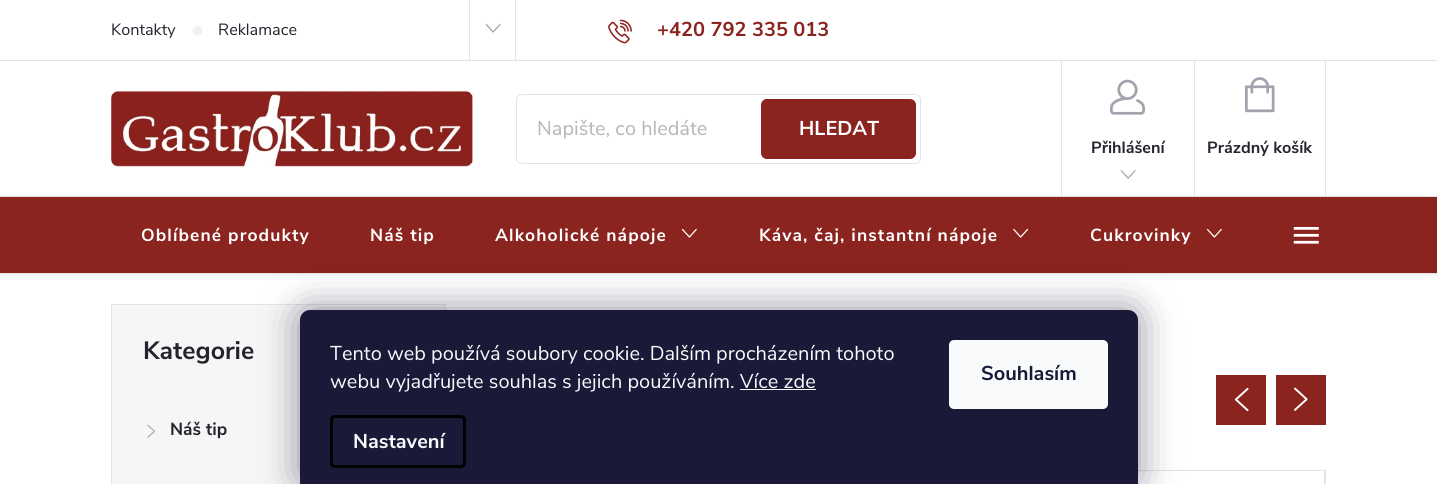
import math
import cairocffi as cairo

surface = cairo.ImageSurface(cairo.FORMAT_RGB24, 1437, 484)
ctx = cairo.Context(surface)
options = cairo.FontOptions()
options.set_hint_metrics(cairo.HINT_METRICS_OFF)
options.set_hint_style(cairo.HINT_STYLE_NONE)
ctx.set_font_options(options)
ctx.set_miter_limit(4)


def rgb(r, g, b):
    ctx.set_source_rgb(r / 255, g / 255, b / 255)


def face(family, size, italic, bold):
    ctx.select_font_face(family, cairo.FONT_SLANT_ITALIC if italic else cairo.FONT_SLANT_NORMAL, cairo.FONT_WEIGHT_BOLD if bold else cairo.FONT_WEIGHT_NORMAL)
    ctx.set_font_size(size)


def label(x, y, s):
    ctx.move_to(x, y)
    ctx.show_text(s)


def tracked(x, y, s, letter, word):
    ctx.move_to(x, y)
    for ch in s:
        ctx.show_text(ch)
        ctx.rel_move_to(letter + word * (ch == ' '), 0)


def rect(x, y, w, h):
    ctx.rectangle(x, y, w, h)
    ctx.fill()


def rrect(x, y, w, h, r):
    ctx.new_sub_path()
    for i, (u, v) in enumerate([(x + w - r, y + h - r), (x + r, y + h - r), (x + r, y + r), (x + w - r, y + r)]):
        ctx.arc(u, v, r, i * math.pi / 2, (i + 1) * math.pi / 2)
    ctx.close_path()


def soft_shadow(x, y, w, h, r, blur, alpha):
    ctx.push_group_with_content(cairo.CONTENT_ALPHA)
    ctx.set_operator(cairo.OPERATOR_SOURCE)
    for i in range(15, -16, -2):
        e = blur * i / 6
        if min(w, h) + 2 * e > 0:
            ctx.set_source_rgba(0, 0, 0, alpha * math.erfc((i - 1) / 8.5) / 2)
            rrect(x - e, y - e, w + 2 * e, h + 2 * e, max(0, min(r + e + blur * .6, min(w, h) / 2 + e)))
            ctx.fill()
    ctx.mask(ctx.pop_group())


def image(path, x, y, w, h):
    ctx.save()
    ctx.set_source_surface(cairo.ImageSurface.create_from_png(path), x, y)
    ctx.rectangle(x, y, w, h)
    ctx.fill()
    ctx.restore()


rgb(255, 255, 255)
ctx.paint()
rgb(228, 228, 228)
rect(0, 60, 1437, 1)
face('Nunito Sans', 16.25, 0, 0)
rgb(36, 36, 46)
label(111, 35, 'Kontakty')
image('image0.png', 192, 25, 11, 11)
label(218, 35, 'Reklamace')
rgb(228, 228, 228)
rect(515, 0, 1, 60)
rect(469, 0, 1, 60)
image('image1.png', 485, 23, 16, 10)
image('image2.png', 608, 19, 24, 25)
face('Nunito Sans', 20, 0, 1)
rgb(139, 35, 30)
label(657, 36, '+420 792 335 013')
image('image3.png', 111, 91, 362, 76)
rrect(516.5, 94.5, 404, 69, 5.5)
rgb(228, 228, 228)
ctx.set_line_width(1)
ctx.stroke()
face('Nunito Sans', 20, 0, 0)
rgb(182, 182, 182)
label(537, 135, 'Napište, co hledáte')
rgb(139, 35, 30)
rrect(761.5, 99.5, 154, 59, 5.5)
ctx.fill_preserve()
ctx.stroke()
face('Nunito Sans', 20, 0, 1)
rgb(255, 255, 255)
label(799, 135, 'HLEDAT')
rgb(228, 228, 228)
rect(1061, 61, 1, 135)
image('image4.png', 1110, 79, 35, 36)
face('Nunito Sans', 16.25, 0, 1)
rgb(36, 36, 46)
label(1091, 153, 'Přihlášení')
image('image5.png', 1120, 170, 16, 9)
rgb(228, 228, 228)
rect(1325, 61, 1, 135)
rect(1194, 61, 1, 135)
image('image6.png', 1245, 77, 30, 36)
rgb(36, 36, 46)
label(1207, 153, 'Prázdný košík')
rgb(0, 0, 0)
soft_shadow(0, 199, 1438, 77, 0, 1, 0.05)
rgb(139, 35, 30)
rect(0, 197, 1437, 76)
face('Nunito Sans', 17.5, 0, 1)
rgb(255, 255, 255)
tracked(141, 241, 'Oblíbené produkty', 1.1, 0)
tracked(370, 241, 'Náš tip', 1.1, 0)
tracked(495, 241, 'Alkoholické nápoje', 1.1, 0)
image('image7.png', 681, 228, 16, 10)
tracked(759, 241, 'Káva, čaj, instantní nápoje', 1.1, 0)
image('image8.png', 1013, 228, 16, 10)
tracked(1090, 241, 'Cukrovinky', 1.1, 0)
image('image7.png', 1206, 228, 16, 10)
image('image9.png', 1293, 227, 26, 17)
rgb(228, 228, 228)
rect(0, 196, 1437, 1)
rect(0, 273, 1437, 1)
rgb(246, 246, 246)
ctx.rectangle(111.5, 304.5, 334, 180)
ctx.fill_preserve()
rgb(228, 228, 228)
ctx.stroke()
face('Nunito Sans', 25, 0, 1)
rgb(36, 36, 46)
label(143, 359, 'Kategorie')
image('image10.png', 147, 424, 8, 14)
face('Nunito Sans', 17.5, 0, 1)
label(170, 435, 'Náš tip')
rgb(139, 35, 30)
rect(1216, 375, 50, 50)
image('image11.png', 1234, 387, 15, 25)
rect(1276, 375, 50, 50)
image('image12.png', 1294, 387, 14, 24)
rgb(228, 228, 228)
rect(1325, 470, 1, 14)
rect(1138, 470, 187, 1)
rect(1324, 470, 1, 14)
rgb(27, 25, 57)
soft_shadow(300, 310, 838, 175, 10, 19, 0.5)
rgb(26, 25, 55)
ctx.new_path()
ctx.move_to(310, 310)
ctx.line_to(1128, 310)
ctx.curve_to(1133.5, 310, 1138, 314.5, 1138, 320)
ctx.line_to(1138, 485)
ctx.line_to(300, 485)
ctx.line_to(300, 320)
ctx.curve_to(300, 314.5, 304.5, 310, 310, 310)
ctx.close_path()
ctx.fill()
face('Nunito Sans', 20, 0, 0)
rgb(248, 250, 251)
label(330, 360, 'Tento web používá soubory cookie. Dalším procházením tohoto')
label(330, 388, 'webu vyjadřujete souhlas s jejich používáním. Více zde')
rect(740, 389, 76, 1)
rrect(331.5, 416.5, 133, 50, 3.5)
rgb(0, 0, 0)
ctx.set_line_width(3)
ctx.stroke()
face('Nunito Sans', 20, 0, 1)
rgb(248, 250, 251)
label(353, 448, 'Nastavení')
rrect(949, 340, 159, 69, 5)
ctx.fill()
rgb(26, 25, 55)
label(981, 380, 'Souhlasím')
surface.write_to_png('render.png')
